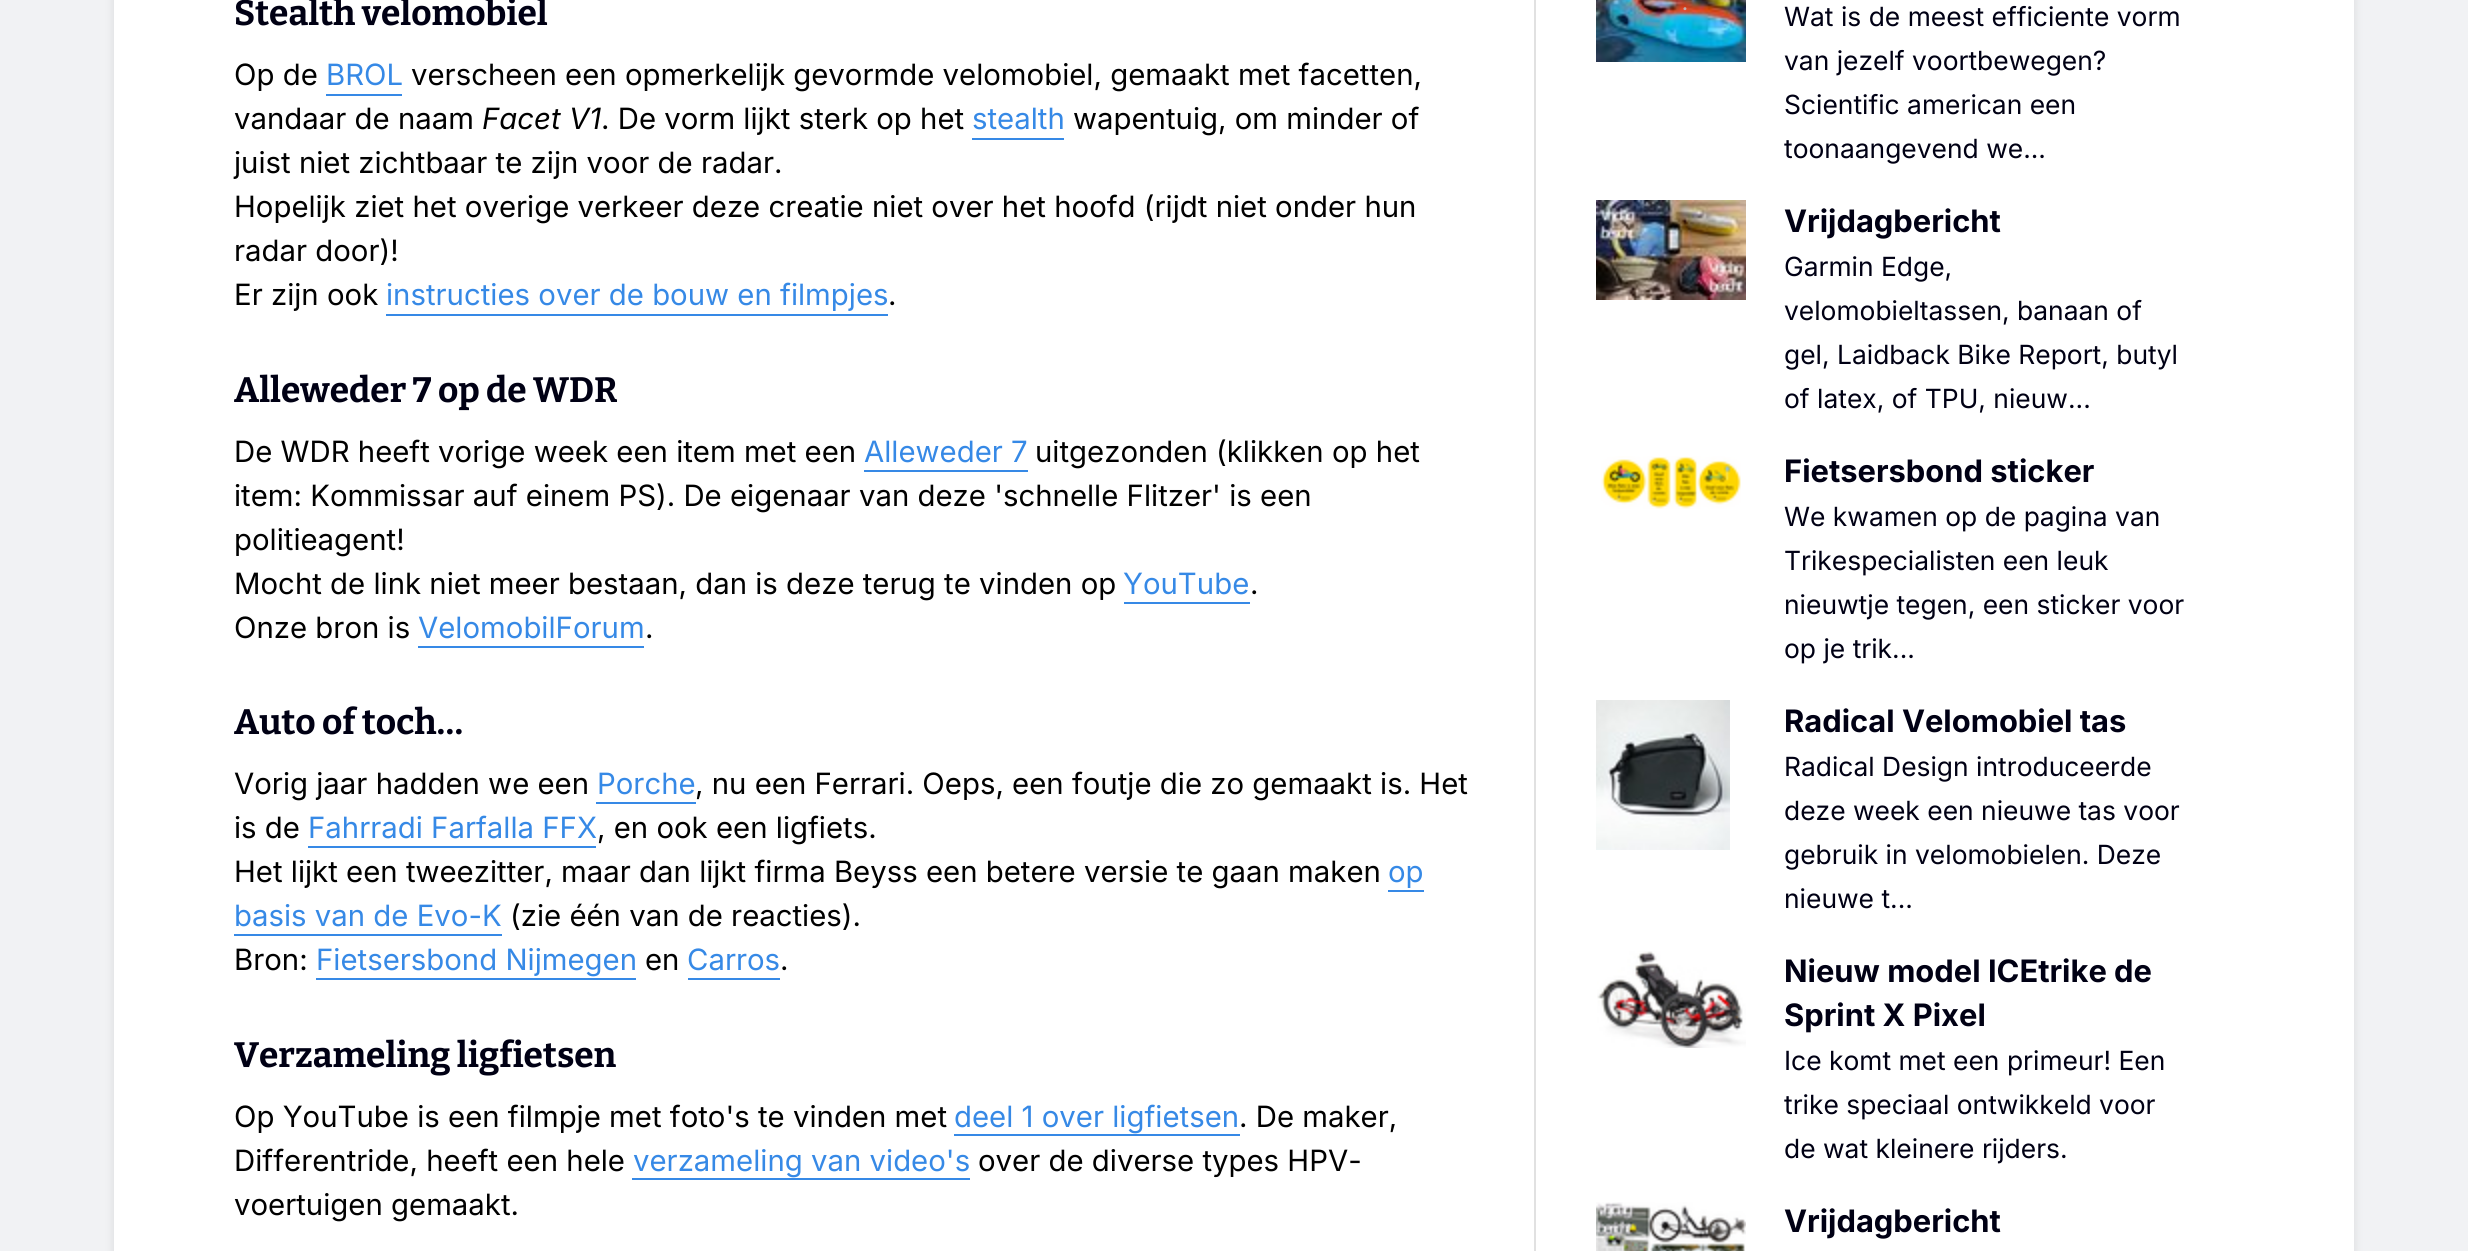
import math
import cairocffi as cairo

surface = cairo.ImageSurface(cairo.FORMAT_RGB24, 2468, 1251)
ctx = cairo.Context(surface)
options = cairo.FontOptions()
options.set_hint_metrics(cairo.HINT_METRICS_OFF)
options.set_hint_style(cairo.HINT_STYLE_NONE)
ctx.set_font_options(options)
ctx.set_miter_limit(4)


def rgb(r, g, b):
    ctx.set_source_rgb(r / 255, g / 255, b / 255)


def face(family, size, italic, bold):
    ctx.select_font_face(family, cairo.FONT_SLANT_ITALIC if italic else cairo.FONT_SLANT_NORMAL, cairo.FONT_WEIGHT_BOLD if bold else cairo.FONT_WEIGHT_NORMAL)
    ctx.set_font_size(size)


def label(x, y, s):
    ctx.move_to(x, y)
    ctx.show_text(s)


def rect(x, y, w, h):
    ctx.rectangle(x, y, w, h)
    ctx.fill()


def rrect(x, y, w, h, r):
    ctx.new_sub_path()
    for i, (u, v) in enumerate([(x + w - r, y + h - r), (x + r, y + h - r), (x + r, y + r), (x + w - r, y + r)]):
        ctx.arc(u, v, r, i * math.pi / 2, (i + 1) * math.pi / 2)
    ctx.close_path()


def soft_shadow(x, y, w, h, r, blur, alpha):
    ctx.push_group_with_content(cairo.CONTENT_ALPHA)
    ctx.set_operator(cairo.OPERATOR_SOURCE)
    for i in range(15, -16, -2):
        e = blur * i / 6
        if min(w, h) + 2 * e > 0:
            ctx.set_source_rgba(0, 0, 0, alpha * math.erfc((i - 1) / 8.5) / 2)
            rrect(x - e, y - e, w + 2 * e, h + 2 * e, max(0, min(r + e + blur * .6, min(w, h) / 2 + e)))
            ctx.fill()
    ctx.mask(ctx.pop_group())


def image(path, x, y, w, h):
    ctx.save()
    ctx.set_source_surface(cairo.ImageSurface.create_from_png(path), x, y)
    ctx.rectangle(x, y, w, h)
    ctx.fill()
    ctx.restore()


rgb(241, 242, 244)
ctx.paint()
rgb(0, 0, 0)
soft_shadow(114, -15, 2240, 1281, 0, 5, 0.1)
rgb(255, 255, 255)
rect(114, 0, 2240, 1251)
face('Bitter', 35.25, 0, 1)
rgb(0, 0, 20)
label(234, 25, 'Stealth velomobiel')
face('Inter', 29.35, 0, 0)
rgb(0, 0, 0)
label(234, 85, 'Op de')
rgb(54, 137, 230)
label(326, 85, 'BROL')
rect(326, 94, 76, 2)
rgb(0, 0, 0)
label(411, 85, 'verscheen een opmerkelijk gevormde velomobiel, gemaakt met facetten,')
label(234, 129, 'vandaar de naam')
face('Inter', 29.35, 1, 0)
label(482, 129, 'Facet V1')
face('Inter', 29.35, 0, 0)
label(601, 129, '. De vorm lijkt sterk op het')
rgb(54, 137, 230)
label(972, 129, 'stealth')
rect(972, 138, 92, 2)
rgb(0, 0, 0)
label(1073, 129, 'wapentuig, om minder of')
label(234, 173, 'juist niet zichtbaar te zijn voor de radar.')
label(234, 217, 'Hopelijk ziet het overige verkeer deze creatie niet over het hoofd (rijdt niet onder hun')
label(234, 261, 'radar door)!')
label(234, 305, 'Er zijn ook')
rgb(54, 137, 230)
label(386, 305, 'instructies over de bouw en filmpjes')
rect(386, 314, 502, 2)
rgb(0, 0, 0)
label(888, 305, '.')
face('Bitter', 35.25, 0, 1)
rgb(0, 0, 20)
label(234, 402, 'Alleweder 7 op de WDR')
face('Inter', 29.35, 0, 0)
rgb(0, 0, 0)
label(234, 462, 'De WDR heeft vorige week een item met een')
rgb(54, 137, 230)
label(864, 462, 'Alleweder 7')
rect(864, 470, 164, 2)
rgb(0, 0, 0)
label(1035, 462, 'uitgezonden (klikken op het')
label(234, 506, 'item: Kommissar auf einem PS). De eigenaar van deze \'schnelle Flitzer\' is een')
label(234, 550, 'politieagent!')
label(234, 594, 'Mocht de link niet meer bestaan, dan is deze terug te vinden op')
rgb(54, 137, 230)
label(1123, 594, 'YouTube')
rect(1124, 602, 126, 2)
rgb(0, 0, 0)
label(1250, 594, '.')
label(234, 638, 'Onze bron is')
rgb(54, 137, 230)
label(418, 638, 'VelomobilForum')
rect(418, 646, 226, 2)
rgb(0, 0, 0)
label(645, 638, '.')
face('Bitter', 35.25, 0, 1)
rgb(0, 0, 20)
label(234, 734, 'Auto of toch…')
face('Inter', 29.35, 0, 0)
rgb(0, 0, 0)
label(234, 794, 'Vorig jaar hadden we een')
rgb(54, 137, 230)
label(597, 794, 'Porche')
rect(596, 802, 100, 2)
rgb(0, 0, 0)
label(695, 794, ', nu een Ferrari. Oeps, een foutje die zo gemaakt is. Het')
label(234, 838, 'is de')
rgb(54, 137, 230)
label(308, 838, 'Fahrradi Farfalla FFX')
rect(308, 846, 288, 2)
rgb(0, 0, 0)
label(597, 838, ', en ook een ligfiets.')
label(234, 882, 'Het lijkt een tweezitter, maar dan lijkt firma Beyss een betere versie te gaan maken')
rgb(54, 137, 230)
label(1388, 882, 'op')
rect(1388, 890, 36, 2)
label(234, 926, 'basis van de Evo-K')
rect(234, 934, 268, 2)
rgb(0, 0, 0)
label(510, 926, '(zie één van de reacties).')
label(234, 970, 'Bron:')
rgb(54, 137, 230)
label(316, 970, 'Fietsersbond Nijmegen')
rect(316, 978, 320, 2)
rgb(0, 0, 0)
label(645, 970, 'en')
rgb(54, 137, 230)
label(687, 970, 'Carros')
rect(688, 978, 92, 2)
rgb(0, 0, 0)
label(780, 970, '.')
face('Bitter', 35.25, 0, 1)
rgb(0, 0, 20)
label(234, 1067, 'Verzameling ligfietsen')
face('Inter', 29.35, 0, 0)
rgb(0, 0, 0)
label(234, 1127, 'Op YouTube is een filmpje met foto\'s te vinden met')
rgb(54, 137, 230)
label(954, 1127, 'deel 1 over ligfietsen')
rect(954, 1134, 286, 2)
rgb(0, 0, 0)
label(1239, 1127, '. De maker,')
label(234, 1171, 'Differentride, heeft een hele')
rgb(54, 137, 230)
label(633, 1171, 'verzameling van video\'s')
rect(632, 1178, 338, 2)
rgb(0, 0, 0)
label(978, 1171, 'over de diverse types HPV-')
label(234, 1215, 'voertuigen gemaakt.')
rgb(225, 225, 225)
rect(1534, 0, 2, 1251)
image('image0.png', 1596, 0, 150, 62)
face('Inter', 26.4, 0, 0)
rgb(0, 0, 20)
label(1784, 26, 'Wat is de meest efficiente vorm')
label(1784, 70, 'van jezelf voortbewegen?')
label(1784, 114, 'Scientific american een')
label(1784, 158, 'toonaangevend we...')
image('image1.png', 1596, 200, 150, 100)
face('Inter', 30.9, 0, 1)
label(1784, 232, 'Vrijdagbericht')
face('Inter', 26.4, 0, 0)
label(1784, 276, 'Garmin Edge,')
label(1784, 320, 'velomobieltassen, banaan of')
label(1784, 364, 'gel, Laidback Bike Report, butyl')
label(1784, 408, 'of latex, of TPU, nieuw...')
image('image2.png', 1601, 456, 140, 53)
face('Inter', 30.9, 0, 1)
label(1784, 482, 'Fietsersbond sticker')
face('Inter', 26.4, 0, 0)
label(1784, 526, 'We kwamen op de pagina van')
label(1784, 570, 'Trikespecialisten een leuk')
label(1784, 614, 'nieuwtje tegen, een sticker voor')
label(1784, 658, 'op je trik...')
image('image3.png', 1596, 700, 134, 150)
face('Inter', 30.9, 0, 1)
label(1784, 732, 'Radical Velomobiel tas')
face('Inter', 26.4, 0, 0)
label(1784, 776, 'Radical Design introduceerde')
label(1784, 820, 'deze week een nieuwe tas voor')
label(1784, 864, 'gebruik in velomobielen. Deze')
label(1784, 908, 'nieuwe t...')
image('image4.png', 1597, 951, 149, 97)
face('Inter', 30.9, 0, 1)
label(1784, 982, 'Nieuw model ICEtrike de')
label(1784, 1026, 'Sprint X Pixel')
face('Inter', 26.4, 0, 0)
label(1784, 1070, 'Ice komt met een primeur! Een')
label(1784, 1114, 'trike speciaal ontwikkeld voor')
label(1784, 1158, 'de wat kleinere rijders.')
image('image5.png', 1596, 1202, 150, 49)
face('Inter', 30.9, 0, 1)
label(1784, 1232, 'Vrijdagbericht')
face('Bitter', 28, 0, 0)
rgb(190, 179, 179)
label(1682, 10, '.')
surface.write_to_png('render.png')
